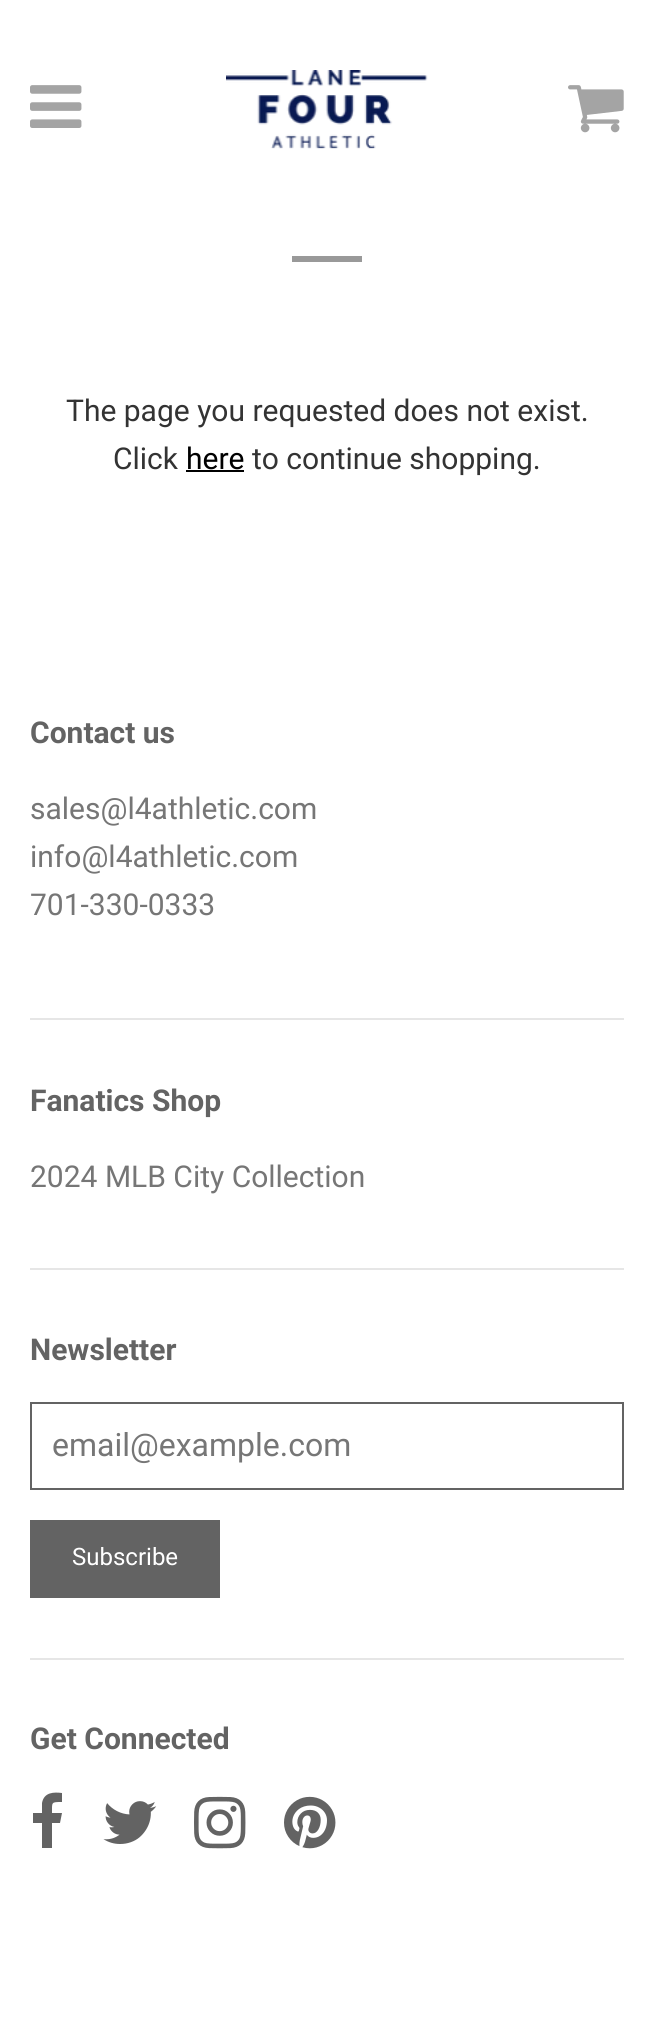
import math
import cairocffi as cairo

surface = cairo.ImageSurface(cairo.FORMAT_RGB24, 654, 2039)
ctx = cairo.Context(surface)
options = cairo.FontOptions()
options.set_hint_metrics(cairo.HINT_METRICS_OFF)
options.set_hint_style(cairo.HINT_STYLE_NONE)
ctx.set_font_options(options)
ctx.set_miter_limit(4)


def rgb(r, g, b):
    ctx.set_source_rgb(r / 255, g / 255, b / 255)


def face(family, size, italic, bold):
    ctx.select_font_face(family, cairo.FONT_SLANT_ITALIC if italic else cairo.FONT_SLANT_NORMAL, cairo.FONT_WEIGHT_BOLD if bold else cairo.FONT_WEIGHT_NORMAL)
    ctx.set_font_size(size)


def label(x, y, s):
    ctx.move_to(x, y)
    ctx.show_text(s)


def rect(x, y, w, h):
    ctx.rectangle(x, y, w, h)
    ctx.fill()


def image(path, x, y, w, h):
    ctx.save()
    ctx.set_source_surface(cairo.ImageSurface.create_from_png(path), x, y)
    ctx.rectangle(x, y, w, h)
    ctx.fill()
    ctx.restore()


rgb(255, 255, 255)
ctx.paint()
image('image0.png', 30, 85, 52, 43)
image('image1.png', 226, 70, 202, 79)
image('image2.png', 568, 85, 56, 48)
rgb(153, 153, 153)
rect(292, 256, 70, 6)
face('Roboto', 30, 0, 0)
rgb(51, 51, 51)
label(66, 421, 'The page you requested does not exist.')
label(113, 469, 'Click')
rgb(0, 0, 0)
label(186, 469, 'here')
rect(186, 470, 58, 2)
rgb(51, 51, 51)
label(252, 469, 'to continue shopping.')
face('Roboto', 30, 0, 1)
rgb(99, 99, 99)
label(30, 743, 'Contact us')
face('Roboto', 30, 0, 0)
rgb(118, 118, 118)
label(30, 819, 'sales@l4athletic.com')
label(30, 867, 'info@l4athletic.com')
label(30, 915, '701-330-0333')
rgb(230, 230, 230)
rect(30, 1018, 594, 2)
face('Roboto', 30, 0, 1)
rgb(99, 99, 99)
label(30, 1111, 'Fanatics Shop')
face('Roboto', 30, 0, 0)
rgb(118, 118, 118)
label(30, 1187, '2024 MLB City Collection')
rgb(230, 230, 230)
rect(30, 1268, 594, 2)
face('Roboto', 30, 0, 1)
rgb(99, 99, 99)
label(30, 1360, 'Newsletter')
ctx.rectangle(31, 1403, 592, 86)
ctx.stroke()
face('Roboto', 32, 0, 0)
rgb(118, 118, 118)
label(52, 1456, 'email@example.com')
rgb(99, 99, 99)
rect(30, 1520, 190, 78)
face('Roboto', 24, 0, 0)
rgb(255, 255, 255)
label(72, 1565, 'Subscribe')
rgb(230, 230, 230)
rect(30, 1658, 594, 2)
face('Roboto', 30, 0, 1)
rgb(99, 99, 99)
label(30, 1749, 'Get Connected')
ctx.new_path()
ctx.move_to(62, 1793)
ctx.line_to(62, 1802)
ctx.curve_to(51, 1802, 52, 1802, 52, 1813)
ctx.line_to(62, 1813)
ctx.line_to(60, 1823)
ctx.line_to(52, 1823)
ctx.line_to(52, 1848)
ctx.line_to(42, 1848)
ctx.line_to(42, 1823)
ctx.line_to(33, 1823)
ctx.line_to(33, 1813)
ctx.line_to(42, 1813)
ctx.line_to(42, 1803)
ctx.curve_to(44, 1792, 54, 1792, 62, 1793)
ctx.close_path()
ctx.fill()
image('image3.png', 103, 1801, 54, 43)
image('image4.png', 194, 1796, 52, 53)
image('image5.png', 284, 1796, 52, 53)
surface.write_to_png('render.png')
